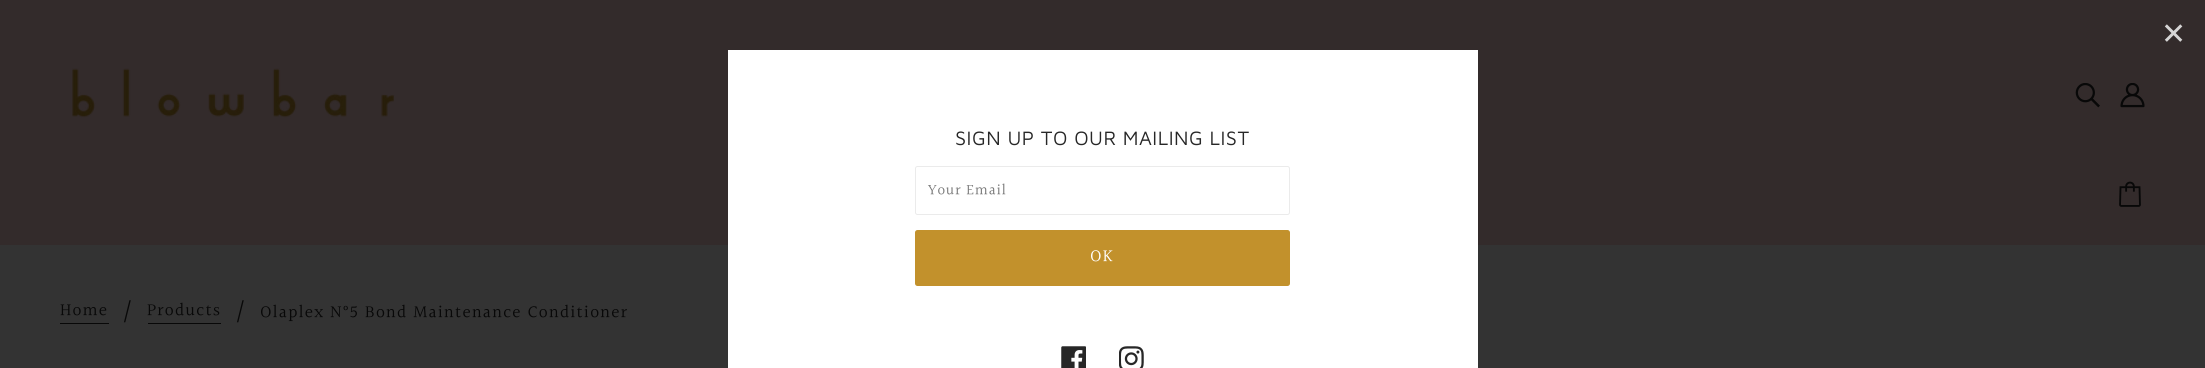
import math
import cairocffi as cairo

surface = cairo.ImageSurface(cairo.FORMAT_RGB24, 2205, 368)
ctx = cairo.Context(surface)
options = cairo.FontOptions()
options.set_hint_metrics(cairo.HINT_METRICS_OFF)
options.set_hint_style(cairo.HINT_STYLE_NONE)
ctx.set_font_options(options)
ctx.set_miter_limit(4)


def rgb(r, g, b):
    ctx.set_source_rgb(r / 255, g / 255, b / 255)


def face(family, size, italic, bold):
    ctx.select_font_face(family, cairo.FONT_SLANT_ITALIC if italic else cairo.FONT_SLANT_NORMAL, cairo.FONT_WEIGHT_BOLD if bold else cairo.FONT_WEIGHT_NORMAL)
    ctx.set_font_size(size)


def label(x, y, s):
    ctx.move_to(x, y)
    ctx.show_text(s)


def tracked(x, y, s, letter, word):
    ctx.move_to(x, y)
    for ch in s:
        ctx.show_text(ch)
        ctx.rel_move_to(letter + word * (ch == ' '), 0)


def rect(x, y, w, h):
    ctx.rectangle(x, y, w, h)
    ctx.fill()


def rrect(x, y, w, h, r):
    ctx.new_sub_path()
    for i, (u, v) in enumerate([(x + w - r, y + h - r), (x + r, y + h - r), (x + r, y + r), (x + w - r, y + r)]):
        ctx.arc(u, v, r, i * math.pi / 2, (i + 1) * math.pi / 2)
    ctx.close_path()


def image(path, x, y, w, h):
    ctx.save()
    ctx.set_source_surface(cairo.ImageSurface.create_from_png(path), x, y)
    ctx.rectangle(x, y, w, h)
    ctx.fill()
    ctx.restore()


rgb(51, 51, 51)
ctx.paint()
rgb(51, 43, 43)
rect(0, 0, 2205, 245)
image('image0.png', 72, 68, 323, 50)
image('image1.png', 2075, 83, 25, 25)
image('image2.png', 2120, 83, 25, 25)
image('image3.png', 2119, 181, 22, 26)
face('DejaVu Sans', 30, 0, 0)
rgb(214, 213, 213)
label(2161, 44, '✕')
face('Halant', 17.5, 0, 0)
rgb(8, 8, 8)
tracked(60, 316, 'Home', 1.25, 0)
rect(60, 323, 49, 1)
face('Poppins Light', 20, 0, 0)
label(123, 319, '/')
face('Halant', 17.5, 0, 0)
tracked(147, 316, 'Products', 1.25, 0)
rect(148, 323, 73, 1)
face('Poppins Light', 20, 0, 0)
label(236, 319, '/')
face('Halant', 17.5, 0, 0)
tracked(260, 318, 'Olaplex N°5 Bond Maintenance Conditioner', 1.25, 0)
rgb(255, 255, 255)
rect(728, 50, 750, 318)
face('Maven Pro', 20, 0, 0)
rgb(39, 39, 39)
tracked(955, 145, 'SIGN UP TO OUR MAILING LIST', 0.5, 0)
rrect(915.5, 166.5, 374, 48, 2)
rgb(235, 235, 235)
ctx.set_line_width(1)
ctx.stroke()
face('Halant', 15, 0, 0)
rgb(117, 117, 117)
tracked(928, 195, 'Your Email', 1, 0)
rgb(194, 145, 44)
rrect(915, 230, 375, 56, 2.5)
ctx.fill()
face('Halant', 17.5, 0, 0)
rgb(255, 255, 255)
tracked(1090, 262, 'OK', 1.25, 0)
image('image4.png', 1061, 346, 25, 22)
image('image5.png', 1119, 346, 25, 22)
surface.write_to_png('render.png')
